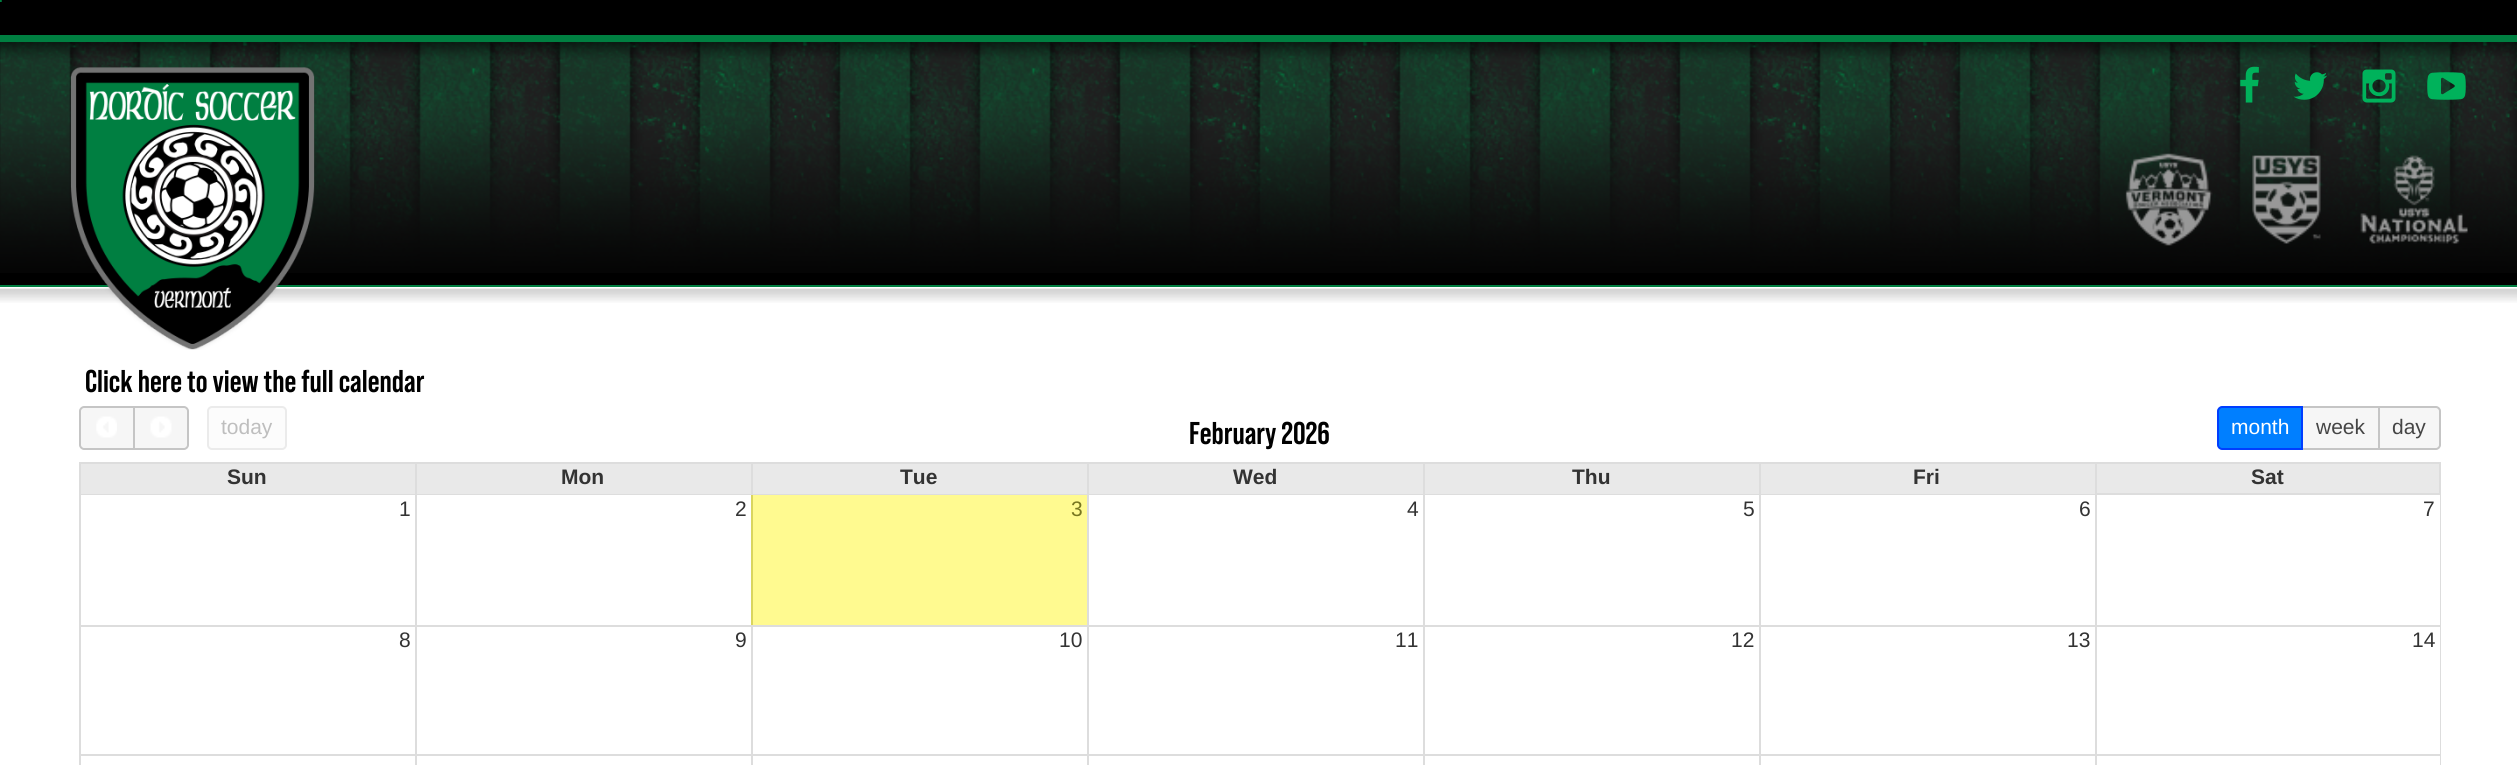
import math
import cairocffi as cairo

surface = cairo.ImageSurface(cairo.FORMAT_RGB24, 2517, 765)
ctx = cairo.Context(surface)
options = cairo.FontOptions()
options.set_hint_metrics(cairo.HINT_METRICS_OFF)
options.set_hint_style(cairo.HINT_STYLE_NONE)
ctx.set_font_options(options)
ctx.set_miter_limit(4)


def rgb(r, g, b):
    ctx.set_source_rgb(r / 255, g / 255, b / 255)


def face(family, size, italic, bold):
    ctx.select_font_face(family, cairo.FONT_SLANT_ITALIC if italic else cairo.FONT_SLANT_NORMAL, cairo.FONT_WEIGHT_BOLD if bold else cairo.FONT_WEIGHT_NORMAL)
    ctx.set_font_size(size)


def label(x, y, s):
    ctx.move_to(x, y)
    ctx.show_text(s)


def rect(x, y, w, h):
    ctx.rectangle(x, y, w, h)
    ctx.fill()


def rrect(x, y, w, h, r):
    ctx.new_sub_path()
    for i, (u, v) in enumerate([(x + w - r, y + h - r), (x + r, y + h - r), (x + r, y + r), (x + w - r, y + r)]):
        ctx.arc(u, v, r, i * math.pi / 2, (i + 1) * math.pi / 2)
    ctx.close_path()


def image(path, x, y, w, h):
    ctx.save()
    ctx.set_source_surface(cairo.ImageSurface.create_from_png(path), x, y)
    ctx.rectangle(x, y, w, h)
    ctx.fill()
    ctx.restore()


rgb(0, 0, 0)
ctx.paint()
image('image0.png', 0, 0, 2, 2)
rgb(0, 127, 65)
rect(0, 35, 2517, 7)
image('image1.png', 0, 42, 2517, 231)
rect(0, 285, 2517, 2)
rgb(255, 255, 255)
rect(0, 287, 2517, 478)
image('image10.png', 0, 288, 2517, 15)
image('image2.png', 70, 67, 245, 283)
image('image3.png', 2240, 66, 19, 37)
image('image4.png', 2293, 72, 35, 28)
image('image5.png', 2362, 69, 34, 34)
image('image6.png', 2427, 72, 39, 28)
image('image7.png', 2125, 153, 88, 93)
image('image8.png', 2252, 155, 69, 89)
image('image9.png', 2360, 155, 108, 89)
face('Bebas Neue', 31.5, 0, 1)
rgb(0, 0, 0)
label(85, 392, 'Click here to view the full calendar')
rgb(246, 246, 246)
ctx.new_path()
ctx.move_to(84, 407)
ctx.line_to(134, 407)
ctx.line_to(134, 449)
ctx.line_to(84, 449)
ctx.curve_to(82, 449, 80, 447, 80, 445)
ctx.line_to(80, 411)
ctx.curve_to(80, 409, 82, 407, 84, 407)
ctx.close_path()
ctx.fill_preserve()
rgb(197, 197, 197)
ctx.stroke()
image('image11.png', 96, 416, 21, 22)
rgb(246, 246, 246)
ctx.new_path()
ctx.move_to(134, 407)
ctx.line_to(184, 407)
ctx.curve_to(186, 407, 188, 409, 188, 411)
ctx.line_to(188, 445)
ctx.curve_to(188, 447, 186, 449, 184, 449)
ctx.line_to(134, 449)
ctx.close_path()
ctx.fill_preserve()
rgb(197, 197, 197)
ctx.stroke()
image('image12.png', 150, 416, 22, 22)
rgb(252, 252, 252)
rrect(208, 407, 78, 42, 4)
ctx.fill_preserve()
rgb(235, 235, 235)
ctx.stroke()
face('Liberation Sans', 21, 0, 0)
rgb(190, 190, 190)
label(221, 434, 'today')
face('Bebas Neue', 31.5, 0, 1)
rgb(0, 0, 0)
label(1189, 444, 'February 2026')
rgb(246, 246, 246)
ctx.rectangle(2302, 407, 77, 42)
ctx.fill_preserve()
rgb(197, 197, 197)
ctx.stroke()
rgb(0, 127, 255)
ctx.new_path()
ctx.move_to(2222, 407)
ctx.line_to(2302, 407)
ctx.line_to(2302, 449)
ctx.line_to(2222, 449)
ctx.curve_to(2220, 449, 2218, 447, 2218, 445)
ctx.line_to(2218, 411)
ctx.curve_to(2218, 409, 2220, 407, 2222, 407)
ctx.close_path()
ctx.fill_preserve()
rgb(0, 62, 255)
ctx.stroke()
face('Liberation Sans', 21, 0, 0)
rgb(255, 255, 255)
label(2231, 434, 'month')
rgb(69, 69, 69)
label(2316, 434, 'week')
rgb(246, 246, 246)
ctx.new_path()
ctx.move_to(2379, 407)
ctx.line_to(2436, 407)
ctx.curve_to(2438, 407, 2440, 409, 2440, 411)
ctx.line_to(2440, 445)
ctx.curve_to(2440, 447, 2438, 449, 2436, 449)
ctx.line_to(2379, 449)
ctx.close_path()
ctx.fill_preserve()
rgb(197, 197, 197)
ctx.stroke()
rgb(69, 69, 69)
label(2392, 434, 'day')
rgb(233, 233, 233)
rect(81, 464, 334, 30)
rgb(221, 221, 221)
rect(79, 462, 2016, 2)
rect(79, 494, 2016, 1)
rect(79, 462, 2, 163)
face('Liberation Sans', 21, 0, 1)
rgb(51, 51, 51)
label(227, 484, 'Sun')
rgb(233, 233, 233)
rect(417, 464, 334, 30)
rgb(221, 221, 221)
rect(415, 462, 2, 163)
rgb(51, 51, 51)
label(561, 484, 'Mon')
rgb(233, 233, 233)
rect(753, 464, 334, 30)
rgb(221, 221, 221)
rect(751, 462, 2, 33)
rgb(51, 51, 51)
label(900, 484, 'Tue')
rgb(233, 233, 233)
rect(1089, 464, 334, 30)
rgb(221, 221, 221)
rect(1087, 462, 2, 163)
rgb(51, 51, 51)
label(1233, 484, 'Wed')
rgb(233, 233, 233)
rect(1425, 464, 334, 30)
rgb(221, 221, 221)
rect(1423, 462, 2, 163)
rgb(51, 51, 51)
label(1572, 484, 'Thu')
rgb(233, 233, 233)
rect(1761, 464, 334, 30)
rgb(221, 221, 221)
rect(1759, 462, 2, 163)
rgb(51, 51, 51)
label(1913, 484, 'Fri')
rgb(233, 233, 233)
ctx.rectangle(2096, 463, 344, 31)
ctx.fill_preserve()
rgb(221, 221, 221)
ctx.stroke()
rgb(51, 51, 51)
label(2251, 484, 'Sat')
face('Liberation Sans', 21, 0, 0)
label(399, 516, '1')
label(735, 516, '2')
rgb(255, 250, 144)
rect(753, 495, 334, 130)
rgb(218, 213, 94)
rect(751, 495, 2, 130)
rgb(119, 118, 32)
label(1071, 516, '3')
rgb(51, 51, 51)
label(1407, 516, '4')
label(1743, 516, '5')
label(2079, 516, '6')
rgb(221, 221, 221)
rect(2440, 495, 1, 130)
rect(2095, 495, 2, 130)
rgb(51, 51, 51)
label(2423, 516, '7')
rgb(221, 221, 221)
rect(79, 625, 2362, 2)
rect(79, 625, 2, 129)
rgb(51, 51, 51)
label(399, 647, '8')
rgb(221, 221, 221)
rect(415, 625, 2, 129)
rgb(51, 51, 51)
label(735, 647, '9')
rgb(221, 221, 221)
rect(751, 625, 2, 129)
rgb(51, 51, 51)
label(1059, 647, '10')
rgb(221, 221, 221)
rect(1087, 625, 2, 129)
rgb(51, 51, 51)
label(1395, 647, '11')
rgb(221, 221, 221)
rect(1423, 625, 2, 129)
rgb(51, 51, 51)
label(1731, 647, '12')
rgb(221, 221, 221)
rect(1759, 625, 2, 129)
rgb(51, 51, 51)
label(2067, 647, '13')
rgb(221, 221, 221)
rect(2440, 625, 1, 129)
rect(2095, 625, 2, 129)
rgb(51, 51, 51)
label(2412, 647, '14')
rgb(221, 221, 221)
rect(79, 754, 2362, 2)
rect(79, 754, 2, 11)
rect(415, 754, 2, 11)
rect(751, 754, 2, 11)
rect(1087, 754, 2, 11)
rect(1423, 754, 2, 11)
rect(1759, 754, 2, 11)
rect(2440, 754, 1, 11)
rect(2095, 754, 2, 11)
surface.write_to_png('render.png')
